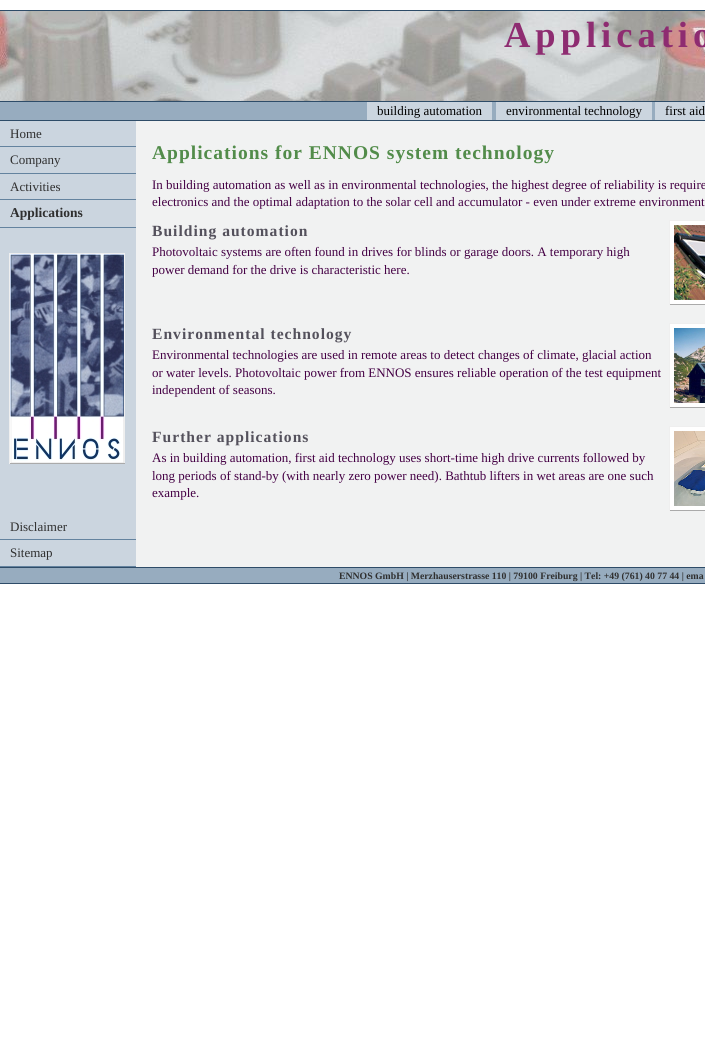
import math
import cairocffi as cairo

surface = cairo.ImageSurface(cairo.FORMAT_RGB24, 705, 1055)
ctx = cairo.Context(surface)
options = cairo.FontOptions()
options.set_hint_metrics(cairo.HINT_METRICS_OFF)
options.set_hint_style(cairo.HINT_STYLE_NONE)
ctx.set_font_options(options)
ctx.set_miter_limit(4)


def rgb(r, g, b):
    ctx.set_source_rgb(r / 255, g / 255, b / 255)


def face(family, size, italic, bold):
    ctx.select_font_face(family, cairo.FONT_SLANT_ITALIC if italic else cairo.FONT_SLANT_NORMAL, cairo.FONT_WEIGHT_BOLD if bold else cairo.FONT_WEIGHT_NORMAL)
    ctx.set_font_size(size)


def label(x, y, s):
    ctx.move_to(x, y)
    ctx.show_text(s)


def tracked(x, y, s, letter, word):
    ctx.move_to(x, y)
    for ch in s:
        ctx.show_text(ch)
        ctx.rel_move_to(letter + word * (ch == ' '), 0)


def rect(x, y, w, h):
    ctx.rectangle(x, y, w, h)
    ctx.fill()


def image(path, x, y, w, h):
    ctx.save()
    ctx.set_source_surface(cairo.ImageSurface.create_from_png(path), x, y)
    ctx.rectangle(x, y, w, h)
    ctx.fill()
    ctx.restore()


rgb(255, 255, 255)
ctx.paint()
rgb(46, 76, 104)
rect(0, 10, 705, 1)
image('image0.png', 0, 11, 705, 90)
face('Liberation Serif', 36.5, 0, 1)
rgb(142, 44, 113)
tracked(504, 47, 'Applicatio', 5, 0)
rgb(151, 172, 191)
rect(0, 102, 655, 18)
rgb(46, 76, 104)
rect(0, 101, 705, 1)
rect(0, 120, 705, 1)
rgb(203, 213, 223)
rect(367, 102, 125, 18)
face('Liberation Serif', 13, 0, 0)
rgb(0, 0, 0)
label(377, 115, 'building automation')
rgb(203, 213, 223)
rect(496, 102, 156, 18)
rgb(0, 0, 0)
label(506, 115, 'environmental technology')
rgb(203, 213, 223)
rect(655, 102, 50, 18)
rgb(0, 0, 0)
label(665, 115, 'first aid')
rgb(241, 242, 242)
rect(136, 121, 569, 446)
rgb(203, 213, 223)
rect(0, 121, 136, 445)
rgb(100, 131, 159)
rect(0, 146, 136, 1)
rgb(47, 47, 47)
label(10, 138, 'Home')
rgb(100, 131, 159)
rect(0, 173, 136, 1)
rgb(47, 47, 47)
label(10, 164, 'Company')
rgb(100, 131, 159)
rect(0, 199, 136, 1)
rgb(47, 47, 47)
label(10, 191, 'Activities')
rgb(100, 131, 159)
rect(0, 227, 136, 1)
face('Liberation Serif', 13.5, 0, 1)
rgb(47, 47, 47)
label(10, 217, 'Applications')
rgb(239, 239, 239)
rect(9, 253, 116, 1)
rect(124, 253, 1, 211)
rgb(170, 170, 170)
rect(9, 463, 116, 1)
rgb(239, 239, 239)
rect(9, 253, 1, 211)
image('image1.png', 10, 254, 114, 209)
rgb(100, 131, 159)
rect(0, 539, 136, 1)
face('Liberation Serif', 13, 0, 0)
rgb(47, 47, 47)
label(10, 531, 'Disclaimer')
rgb(100, 131, 159)
rect(0, 566, 136, 1)
rgb(47, 47, 47)
label(10, 557, 'Sitemap')
face('Liberation Serif', 19.5, 0, 1)
rgb(82, 140, 74)
tracked(152, 159, 'Applications for ENNOS system technology', 1, 0)
face('Liberation Serif', 13, 0, 0)
rgb(68, 0, 68)
label(152, 189, 'In building automation as well as in environmental technologies, the highest degree of reliability is require')
label(152, 206, 'electronics and the optimal adaptation to the solar cell and accumulator - even under extreme environment')
face('Liberation Serif', 15.6, 0, 1)
rgb(84, 81, 92)
tracked(152, 236, 'Building automation', 1, 0)
face('Liberation Serif', 13, 0, 0)
rgb(68, 0, 68)
label(152, 256, 'Photovoltaic systems are often found in drives for blinds or garage doors. A temporary high')
label(152, 274, 'power demand for the drive is characteristic here.')
rgb(239, 239, 239)
rect(669, 220, 36, 1)
rgb(170, 170, 170)
rect(669, 304, 36, 1)
rgb(239, 239, 239)
rect(669, 220, 1, 85)
rgb(255, 255, 255)
rect(670, 221, 35, 83)
image('image2.png', 674, 225, 31, 75)
face('Liberation Serif', 15.6, 0, 1)
rgb(84, 81, 92)
tracked(152, 339, 'Environmental technology', 1, 0)
face('Liberation Serif', 13, 0, 0)
rgb(68, 0, 68)
label(152, 359, 'Environmental technologies are used in remote areas to detect changes of climate, glacial action')
label(152, 377, 'or water levels. Photovoltaic power from ENNOS ensures reliable operation of the test equipment')
label(152, 394, 'independent of seasons.')
rgb(239, 239, 239)
rect(669, 323, 36, 1)
rgb(170, 170, 170)
rect(669, 407, 36, 1)
rgb(239, 239, 239)
rect(669, 323, 1, 85)
rgb(255, 255, 255)
rect(670, 324, 35, 83)
image('image3.png', 674, 328, 31, 75)
face('Liberation Serif', 15.6, 0, 1)
rgb(84, 81, 92)
tracked(152, 442, 'Further applications', 1, 0)
face('Liberation Serif', 13, 0, 0)
rgb(68, 0, 68)
label(152, 462, 'As in building automation, first aid technology uses short-time high drive currents followed by')
label(152, 480, 'long periods of stand-by (with nearly zero power need). Bathtub lifters in wet areas are one such')
label(152, 497, 'example.')
rgb(239, 239, 239)
rect(669, 426, 36, 1)
rgb(170, 170, 170)
rect(669, 510, 36, 1)
rgb(239, 239, 239)
rect(669, 426, 1, 85)
rgb(255, 255, 255)
rect(670, 427, 35, 83)
image('image4.png', 674, 431, 31, 75)
rgb(151, 172, 191)
rect(0, 568, 705, 15)
rgb(46, 76, 104)
rect(0, 567, 705, 1)
rect(0, 583, 705, 1)
face('Liberation Serif', 9.75, 0, 1)
rgb(47, 47, 47)
label(339, 579, 'ENNOS GmbH | Merzhauserstrasse 110 | 79100 Freiburg | Tel: +49 (761) 40 77 44 | ema')
surface.write_to_png('render.png')
